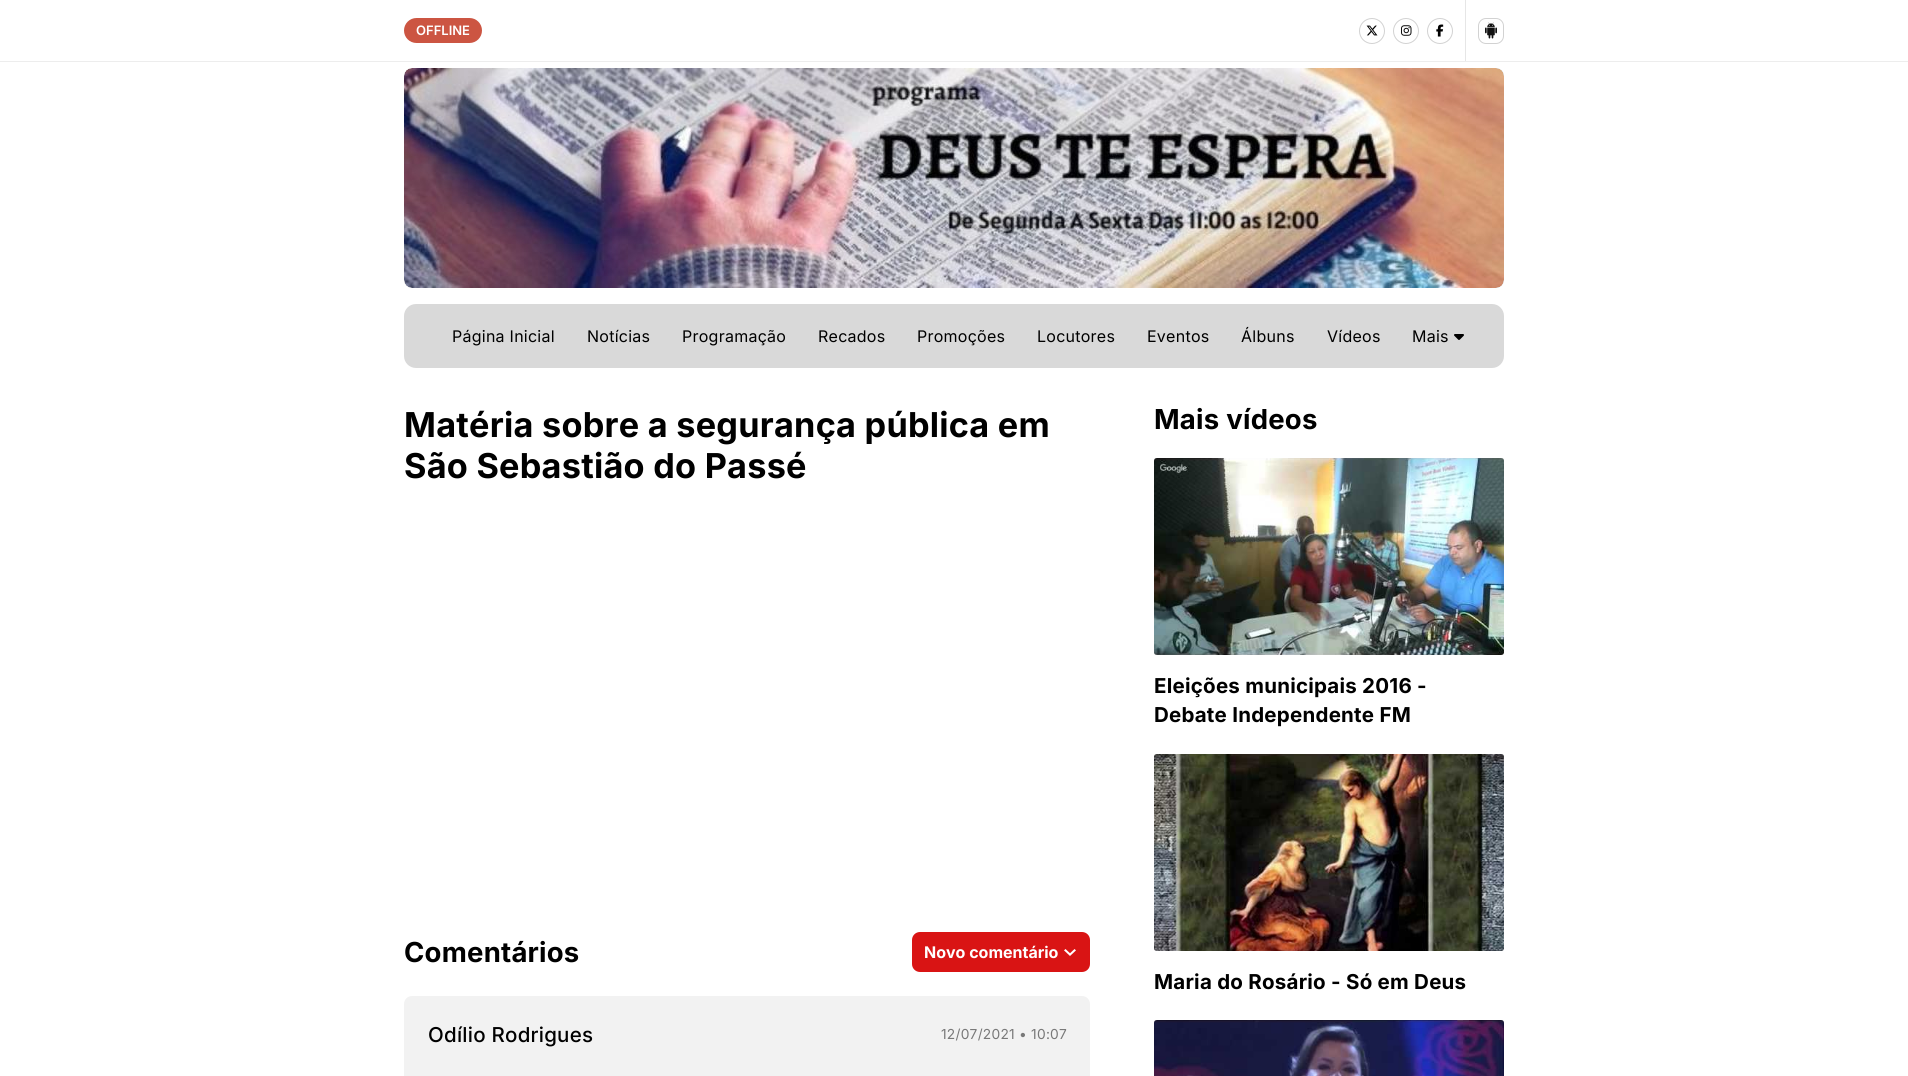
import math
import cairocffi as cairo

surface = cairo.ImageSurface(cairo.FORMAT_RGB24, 1908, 1076)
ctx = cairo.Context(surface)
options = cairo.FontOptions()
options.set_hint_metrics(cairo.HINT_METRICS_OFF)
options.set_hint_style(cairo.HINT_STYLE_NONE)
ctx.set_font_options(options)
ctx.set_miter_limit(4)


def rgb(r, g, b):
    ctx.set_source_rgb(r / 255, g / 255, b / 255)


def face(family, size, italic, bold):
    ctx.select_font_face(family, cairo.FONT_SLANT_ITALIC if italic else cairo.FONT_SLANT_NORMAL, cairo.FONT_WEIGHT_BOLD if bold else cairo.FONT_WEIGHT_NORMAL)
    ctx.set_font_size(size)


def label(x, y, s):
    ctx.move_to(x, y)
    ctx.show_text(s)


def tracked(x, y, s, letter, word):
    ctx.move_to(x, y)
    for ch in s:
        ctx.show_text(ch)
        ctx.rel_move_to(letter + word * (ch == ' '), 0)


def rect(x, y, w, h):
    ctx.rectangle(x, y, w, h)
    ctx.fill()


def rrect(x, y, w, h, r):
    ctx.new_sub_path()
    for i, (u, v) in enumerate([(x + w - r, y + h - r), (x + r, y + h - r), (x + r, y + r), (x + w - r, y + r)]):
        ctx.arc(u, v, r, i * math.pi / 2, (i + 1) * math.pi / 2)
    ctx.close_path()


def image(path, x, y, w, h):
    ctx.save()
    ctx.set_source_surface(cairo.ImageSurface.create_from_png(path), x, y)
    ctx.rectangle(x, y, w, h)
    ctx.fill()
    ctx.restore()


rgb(255, 255, 255)
ctx.paint()
rgb(237, 237, 237)
rect(0, 61, 1908, 1)
rgb(204, 85, 66)
rrect(404, 18, 78, 25, 12.5)
ctx.fill()
face('Inter SemiBold', 13, 0, 0)
rgb(255, 255, 255)
label(416, 35, 'OFFLINE')
ctx.new_path()
ctx.arc(1372, 31, 12.5, 0, 2 * math.pi)
rgb(210, 210, 210)
ctx.set_line_width(1)
ctx.stroke()
image('image0.png', 1366, 25, 12, 11)
ctx.arc(1406, 31, 12.5, 0, 2 * math.pi)
ctx.stroke()
image('image1.png', 1401, 25, 11, 11)
ctx.arc(1440, 31, 12.5, 0, 2 * math.pi)
ctx.stroke()
image('image2.png', 1436, 24, 8, 13)
rgb(230, 230, 230)
rect(1465, 0, 1, 61)
rrect(1478.5, 18.5, 25, 25, 7.5)
rgb(210, 210, 210)
ctx.stroke()
image('image3.png', 1485, 22, 12, 17)
rgb(217, 217, 217)
rrect(404, 68, 1100, 220, 8)
ctx.fill()
image('image4.png', 404, 68, 1100, 220)
rrect(404, 304, 1100, 64, 12)
ctx.fill()
face('Inter', 16, 0, 0)
rgb(0, 0, 0)
tracked(452, 342, 'Página Inicial', 0.25, 0)
tracked(587, 342, 'Notícias', 0.25, 0)
tracked(682, 342, 'Programação', 0.25, 0)
tracked(818, 342, 'Recados', 0.25, 0)
tracked(917, 342, 'Promoções', 0.25, 0)
tracked(1037, 342, 'Locutores', 0.25, 0)
tracked(1147, 342, 'Eventos', 0.25, 0)
tracked(1241, 342, 'Álbuns', 0.25, 0)
tracked(1327, 342, 'Vídeos', 0.25, 0)
tracked(1412, 342, 'Mais', 0.25, 0)
image('image5.png', 1454, 334, 10, 6)
face('Inter', 34.25, 0, 1)
tracked(404, 437, 'Matéria sobre a segurança pública em', 0.25, 0)
tracked(404, 478, 'São Sebastião do Passé', 0.25, 0)
face('Inter', 27.5, 0, 1)
tracked(1154, 429, 'Mais vídeos', 0.25, 0)
image('image6.png', 1154, 458, 350, 197)
face('Inter', 20.5, 0, 1)
tracked(1154, 693, 'Eleições municipais 2016 -', 0.25, 0)
tracked(1154, 722, 'Debate Independente FM', 0.25, 0)
image('image7.png', 1154, 754, 350, 197)
tracked(1154, 989, 'Maria do Rosário - Só em Deus', 0.25, 0)
image('image8.png', 1154, 1020, 350, 56)
face('Inter', 27.5, 0, 1)
tracked(404, 962, 'Comentários', 0.25, 0)
rgb(217, 20, 20)
rrect(912, 932, 178, 40, 8)
ctx.fill()
face('Inter', 16, 0, 1)
rgb(255, 255, 255)
label(924, 958, 'Novo comentário')
image('image9.png', 1064, 949, 12, 7)
rgb(242, 242, 242)
rrect(404, 996, 686, 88, 8)
ctx.fill()
face('Inter Medium', 20.5, 0, 0)
rgb(0, 0, 0)
tracked(428, 1042, 'Odílio Rodrigues', 0.25, 0)
face('Inter', 13.75, 0, 0)
rgb(121, 121, 121)
tracked(941, 1039, '12/07/2021 • 10:07', 0.25, 0)
surface.write_to_png('render.png')
